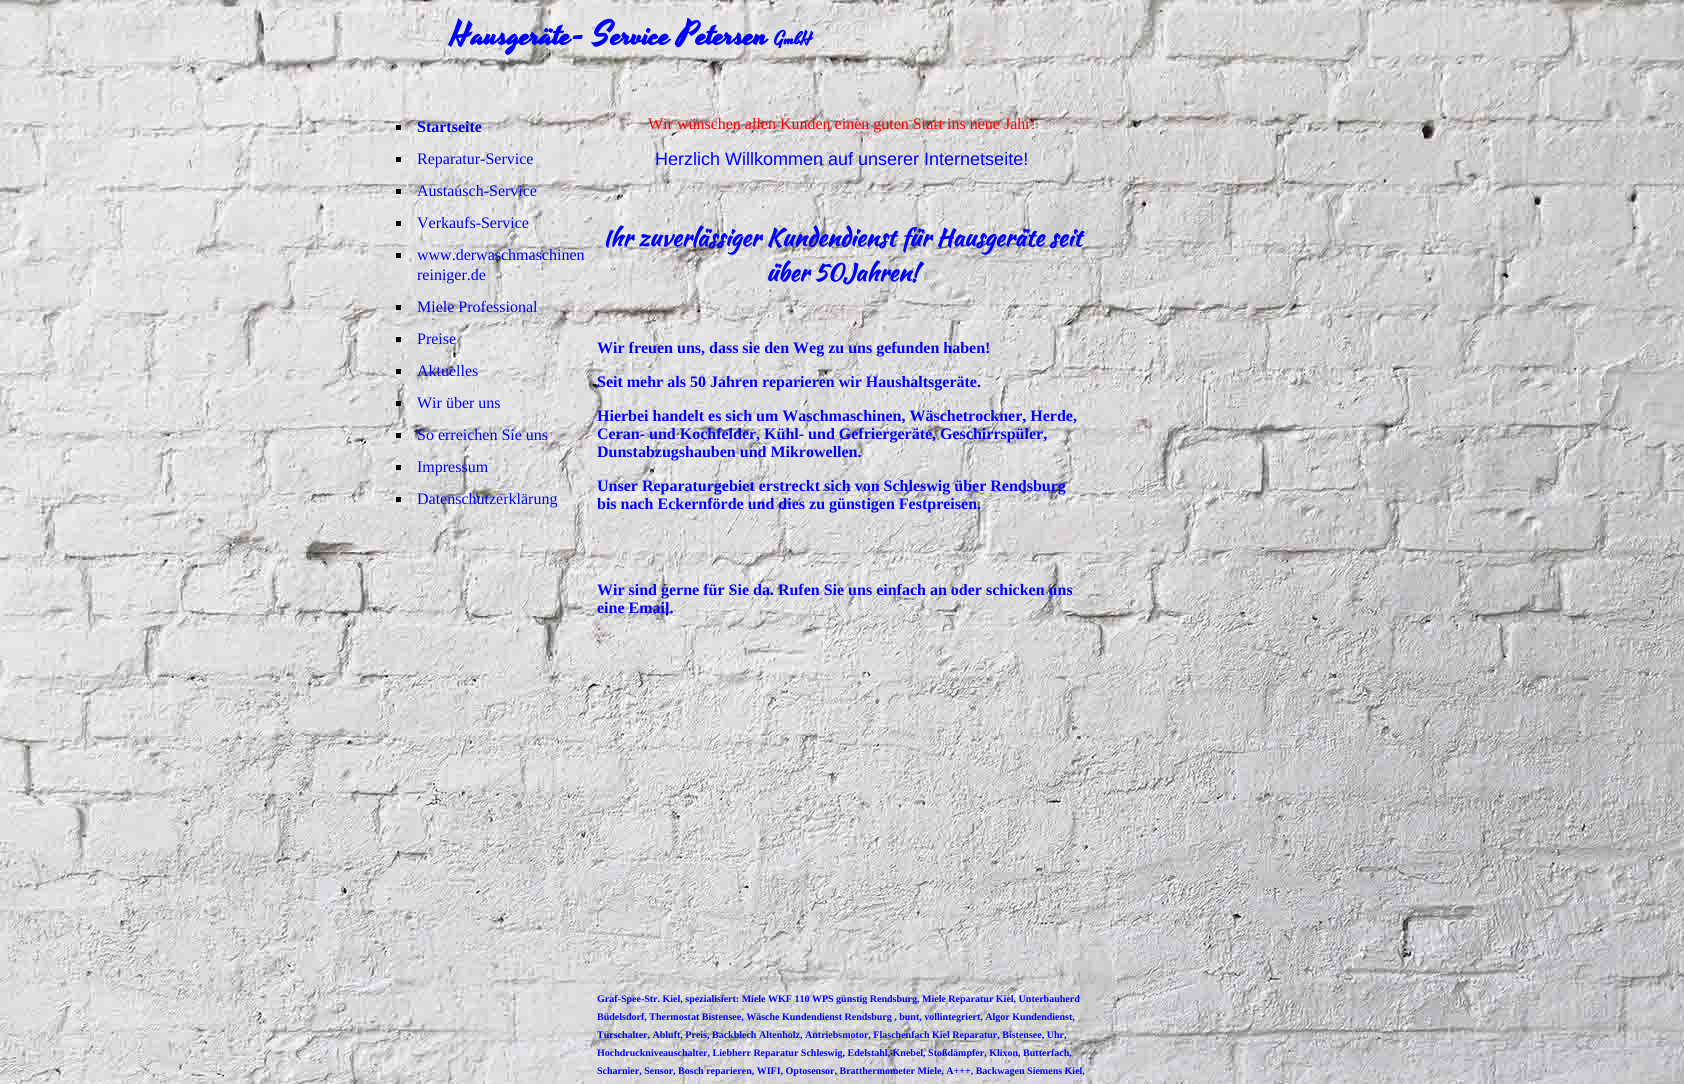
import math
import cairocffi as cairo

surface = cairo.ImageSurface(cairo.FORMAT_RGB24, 1684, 1084)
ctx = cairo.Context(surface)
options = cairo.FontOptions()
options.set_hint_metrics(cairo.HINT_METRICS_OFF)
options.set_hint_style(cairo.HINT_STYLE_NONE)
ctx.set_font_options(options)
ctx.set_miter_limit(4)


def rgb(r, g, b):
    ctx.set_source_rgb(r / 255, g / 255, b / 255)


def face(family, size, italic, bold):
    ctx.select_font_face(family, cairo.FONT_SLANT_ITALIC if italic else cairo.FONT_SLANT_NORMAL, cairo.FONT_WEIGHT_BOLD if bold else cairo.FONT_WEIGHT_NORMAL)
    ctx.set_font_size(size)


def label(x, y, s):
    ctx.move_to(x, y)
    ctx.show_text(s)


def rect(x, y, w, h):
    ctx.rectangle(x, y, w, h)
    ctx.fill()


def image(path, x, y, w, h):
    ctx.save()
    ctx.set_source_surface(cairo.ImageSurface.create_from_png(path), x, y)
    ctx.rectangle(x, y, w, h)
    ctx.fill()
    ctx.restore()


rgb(255, 255, 255)
ctx.paint()
image('image0.png', 0, 0, 1684, 1084)
face('Yesteryear', 32, 0, 1)
rgb(0, 0, 255)
label(451, 44, 'Hausgeräte- Service Petersen')
face('Yesteryear', 18, 0, 1)
label(774, 44, 'GmbH')
rgb(0, 0, 0)
rect(396, 125, 5, 5)
face('Liberation Serif', 16, 0, 1)
rgb(0, 0, 238)
label(417, 132, 'Startseite')
rgb(0, 0, 0)
rect(396, 157, 5, 5)
face('Liberation Serif', 16, 0, 0)
rgb(0, 0, 238)
label(417, 164, 'Reparatur-Service')
rgb(0, 0, 0)
rect(396, 189, 5, 5)
rgb(0, 0, 238)
label(417, 196, 'Austausch-Service')
rgb(0, 0, 0)
rect(396, 221, 5, 5)
rgb(0, 0, 238)
label(417, 228, 'Verkaufs-Service')
rgb(0, 0, 0)
rect(396, 253, 5, 5)
rgb(0, 0, 238)
label(417, 260, 'www.derwaschmaschinen')
label(417, 280, 'reiniger.de')
rgb(0, 0, 0)
rect(396, 305, 5, 5)
rgb(0, 0, 238)
label(417, 312, 'Miele Professional')
rgb(0, 0, 0)
rect(396, 337, 5, 5)
rgb(0, 0, 238)
label(417, 344, 'Preise')
rgb(0, 0, 0)
rect(396, 369, 5, 5)
rgb(0, 0, 238)
label(417, 376, 'Aktuelles')
rgb(0, 0, 0)
rect(396, 401, 5, 5)
rgb(0, 0, 238)
label(417, 408, 'Wir über uns')
rgb(0, 0, 0)
rect(396, 433, 5, 5)
rgb(0, 0, 238)
label(417, 440, 'So erreichen Sie uns')
rgb(0, 0, 0)
rect(396, 465, 5, 5)
rgb(0, 0, 238)
label(417, 472, 'Impressum')
rgb(0, 0, 0)
rect(396, 497, 5, 5)
rgb(0, 0, 238)
label(417, 504, 'Datenschutzerklärung')
rgb(255, 0, 0)
label(648, 129, 'Wir wünschen allen Kunden einen guten Start ins neue Jahr!')
face('Liberation Sans', 18, 0, 0)
rgb(0, 0, 255)
label(655, 165, 'Herzlich Willkommen auf unserer Internetseite!')
face('Kaushan Script', 22, 0, 1)
label(603, 246, 'I')
face('Kaushan Script', 24, 0, 1)
label(610, 246, 'hr zuverlässiger Kundendienst für Hausgeräte seit')
label(766, 281, 'über 50Jahren!')
face('Liberation Serif', 16, 0, 1)
label(597, 353, 'Wir freuen uns, dass sie den Weg zu uns gefunden haben!')
label(597, 387, 'Seit mehr als 50 Jahren reparieren wir Haushaltsgeräte.')
label(597, 421, 'Hierbei handelt es sich um Waschmaschinen, Wäschetrockner, Herde,')
label(597, 439, 'Ceran- und Kochfelder, Kühl- und Gefriergeräte, Geschirrspüler,')
label(597, 457, 'Dunstabzugshauben und Mikrowellen.')
label(597, 491, 'Unser Reparaturgebiet erstreckt sich von Schleswig über Rendsburg')
label(597, 509, 'bis nach Eckernförde und dies zu günstigen Festpreisen.')
label(597, 595, 'Wir sind gerne für Sie da. Rufen Sie uns einfach an oder schicken uns')
label(597, 613, 'eine Email.')
face('Liberation Serif', 10, 0, 1)
label(597, 1002, 'Graf-Spee-Str. Kiel, spezialisiert: Miele WKF 110 WPS günstig Rendsburg, Miele Reparatur Kiel, Unterbauherd')
label(597, 1020, 'Büdelsdorf, Thermostat Bistensee, Wäsche Kundendienst Rendsburg , bunt, vollintegriert, Algor Kundendienst,')
label(597, 1038, 'Türschalter, Abluft, Preis, Backblech Altenholz, Antriebsmotor, Flaschenfach Kiel Reparatur, Bistensee, Uhr,')
label(597, 1056, 'Hochdruckniveauschalter, Liebherr Reparatur Schleswig, Edelstahl, Knebel, Stoßdämpfer, Klixon, Butterfach,')
label(597, 1074, 'Scharnier, Sensor, Bosch reparieren, WIFI, Optosensor, Bratthermometer Miele, A+++, Backwagen Siemens Kiel,')
surface.write_to_png('render.png')
